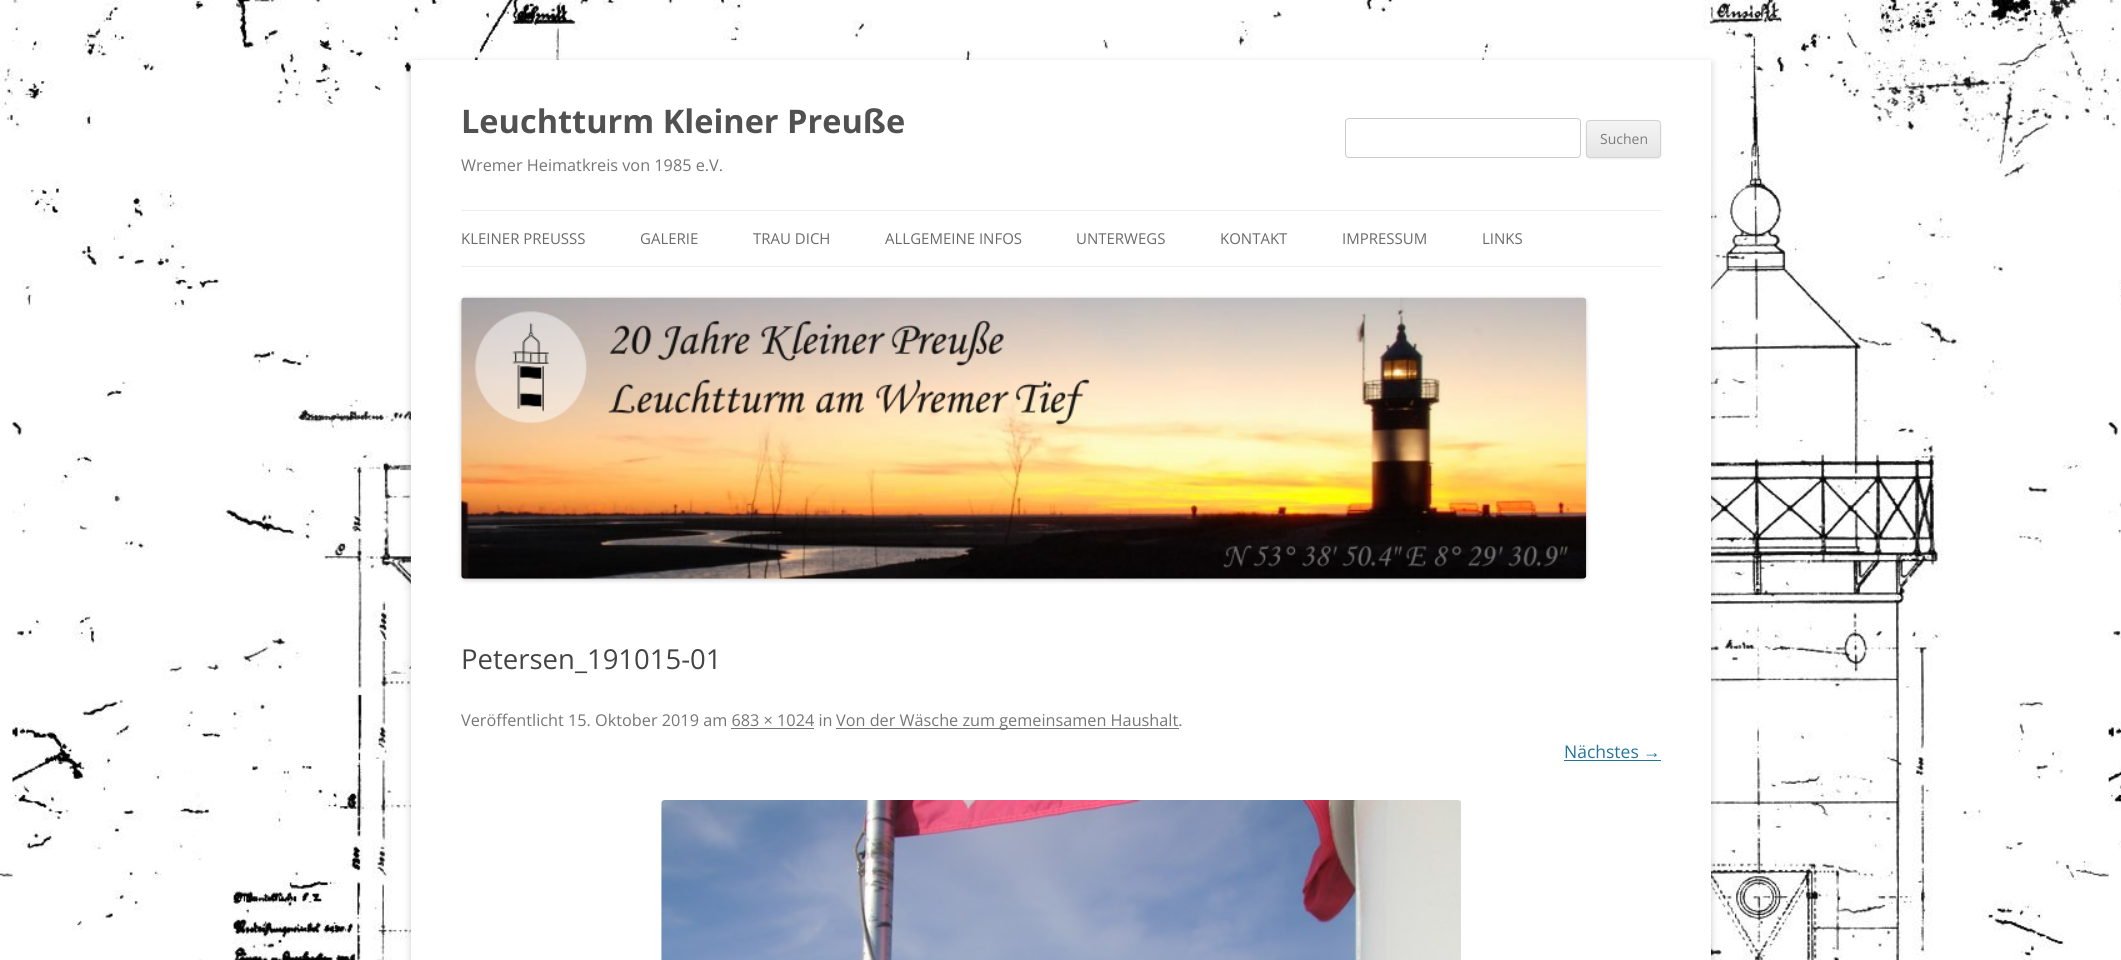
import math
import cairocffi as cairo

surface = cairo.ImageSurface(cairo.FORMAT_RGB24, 2121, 960)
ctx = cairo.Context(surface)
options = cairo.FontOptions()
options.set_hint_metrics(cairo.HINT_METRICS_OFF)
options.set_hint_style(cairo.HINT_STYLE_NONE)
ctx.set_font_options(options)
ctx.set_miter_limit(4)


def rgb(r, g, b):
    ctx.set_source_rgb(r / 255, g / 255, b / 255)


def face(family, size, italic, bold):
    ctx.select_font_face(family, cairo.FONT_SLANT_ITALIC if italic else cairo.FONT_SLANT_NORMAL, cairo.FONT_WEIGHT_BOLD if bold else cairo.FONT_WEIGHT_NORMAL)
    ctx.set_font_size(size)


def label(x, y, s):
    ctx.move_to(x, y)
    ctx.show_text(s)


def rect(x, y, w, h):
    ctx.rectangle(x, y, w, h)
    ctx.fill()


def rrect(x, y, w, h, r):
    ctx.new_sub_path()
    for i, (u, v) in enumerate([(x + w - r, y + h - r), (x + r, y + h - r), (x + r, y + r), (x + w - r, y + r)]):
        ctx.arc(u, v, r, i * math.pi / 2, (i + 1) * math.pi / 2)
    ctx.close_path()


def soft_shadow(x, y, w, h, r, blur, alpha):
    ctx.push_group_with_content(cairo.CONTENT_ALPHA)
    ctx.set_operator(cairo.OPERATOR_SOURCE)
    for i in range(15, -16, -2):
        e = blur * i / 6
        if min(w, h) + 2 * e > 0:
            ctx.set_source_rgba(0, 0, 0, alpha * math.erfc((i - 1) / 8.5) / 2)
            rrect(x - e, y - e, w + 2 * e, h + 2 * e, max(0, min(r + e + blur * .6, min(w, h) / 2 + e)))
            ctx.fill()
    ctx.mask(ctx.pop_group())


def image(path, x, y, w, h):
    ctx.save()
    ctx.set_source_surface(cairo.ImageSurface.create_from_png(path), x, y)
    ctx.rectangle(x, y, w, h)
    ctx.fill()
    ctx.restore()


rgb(255, 255, 255)
ctx.paint()
image('image0.png', 0, 0, 2121, 960)
rgb(100, 100, 100)
soft_shadow(411, 63, 1300, 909, 0, 4, 0.3)
rgb(255, 255, 255)
rect(411, 60, 1300, 900)
face('Open Sans', 32.5, 0, 1)
rgb(81, 81, 81)
label(461, 133, 'Leuchtturm Kleiner Preuße')
face('Open Sans', 16.25, 0, 0)
rgb(117, 117, 117)
label(461, 171, 'Wremer Heimatkreis von 1985 e.V.')
rrect(1345.5, 118.5, 235, 39, 3.5)
rgb(204, 204, 204)
ctx.set_line_width(1)
ctx.stroke()
rgb(64, 64, 64)
soft_shadow(1586, 121, 75, 38, 4, 1, 0.1)
rgb(230, 230, 230)
rrect(1586, 120, 75, 38, 4)
ctx.fill()
ctx.save()
rrect(1586, 120, 75, 38, 4)
ctx.clip()
gradient = cairo.LinearGradient(1624, 121, 1624, 156)
gradient.add_color_stop_rgba(0, 0.957, 0.957, 0.957, 1)
gradient.add_color_stop_rgba(1, 0.902, 0.902, 0.902, 1)
ctx.set_source(gradient)
rect(1586, 121, 75, 35)
ctx.restore()
rrect(1586.5, 120.5, 74, 37, 3.5)
rgb(210, 210, 210)
ctx.stroke()
face('Open Sans', 14, 0, 0)
rgb(124, 124, 124)
label(1600, 144, 'Suchen')
rgb(237, 237, 237)
rect(461, 210, 1200, 1)
rect(461, 266, 1200, 1)
face('Open Sans', 15, 0, 0)
rgb(106, 106, 106)
label(461, 244, 'KLEINER PREUSSS')
label(640, 244, 'GALERIE')
label(753, 244, 'TRAU DICH')
label(885, 244, 'ALLGEMEINE INFOS')
label(1076, 244, 'UNTERWEGS')
label(1220, 244, 'KONTAKT')
label(1342, 244, 'IMPRESSUM')
label(1482, 244, 'LINKS')
rgb(0, 0, 0)
soft_shadow(461, 299, 1125, 281, 4, 2.5, 0.2)
image('image1.png', 461, 297, 1126, 282)
face('Open Sans', 27.5, 0, 0)
rgb(68, 68, 68)
label(461, 669, 'Petersen_191015-01')
face('Open Sans', 16.25, 0, 0)
rgb(117, 117, 117)
label(461, 726, 'Veröffentlicht 15. Oktober 2019 am 683 × 1024 in')
rect(836, 728, 343, 1)
label(836, 726, 'Von der Wäsche zum gemeinsamen Haushalt.')
rect(731, 728, 83, 1)
face('Open Sans', 17.5, 0, 0)
rgb(33, 117, 155)
label(1564, 758, 'Nächstes')
face('Liberation Sans', 17.5, 0, 0)
label(1643, 758, '→')
rect(1564, 760, 97, 1)
image('image2.png', 661, 800, 800, 160)
surface.write_to_png('render.png')
